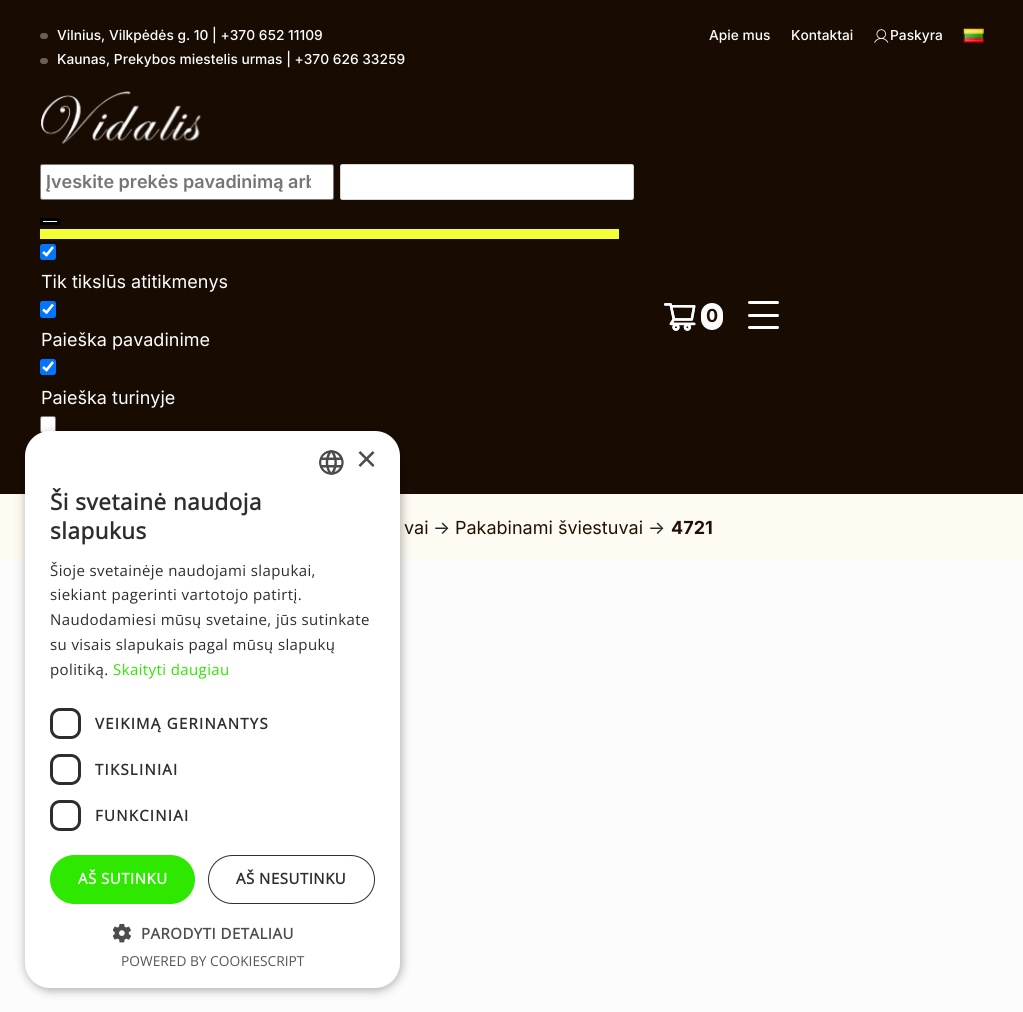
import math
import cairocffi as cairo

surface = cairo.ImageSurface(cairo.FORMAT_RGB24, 1023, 1012)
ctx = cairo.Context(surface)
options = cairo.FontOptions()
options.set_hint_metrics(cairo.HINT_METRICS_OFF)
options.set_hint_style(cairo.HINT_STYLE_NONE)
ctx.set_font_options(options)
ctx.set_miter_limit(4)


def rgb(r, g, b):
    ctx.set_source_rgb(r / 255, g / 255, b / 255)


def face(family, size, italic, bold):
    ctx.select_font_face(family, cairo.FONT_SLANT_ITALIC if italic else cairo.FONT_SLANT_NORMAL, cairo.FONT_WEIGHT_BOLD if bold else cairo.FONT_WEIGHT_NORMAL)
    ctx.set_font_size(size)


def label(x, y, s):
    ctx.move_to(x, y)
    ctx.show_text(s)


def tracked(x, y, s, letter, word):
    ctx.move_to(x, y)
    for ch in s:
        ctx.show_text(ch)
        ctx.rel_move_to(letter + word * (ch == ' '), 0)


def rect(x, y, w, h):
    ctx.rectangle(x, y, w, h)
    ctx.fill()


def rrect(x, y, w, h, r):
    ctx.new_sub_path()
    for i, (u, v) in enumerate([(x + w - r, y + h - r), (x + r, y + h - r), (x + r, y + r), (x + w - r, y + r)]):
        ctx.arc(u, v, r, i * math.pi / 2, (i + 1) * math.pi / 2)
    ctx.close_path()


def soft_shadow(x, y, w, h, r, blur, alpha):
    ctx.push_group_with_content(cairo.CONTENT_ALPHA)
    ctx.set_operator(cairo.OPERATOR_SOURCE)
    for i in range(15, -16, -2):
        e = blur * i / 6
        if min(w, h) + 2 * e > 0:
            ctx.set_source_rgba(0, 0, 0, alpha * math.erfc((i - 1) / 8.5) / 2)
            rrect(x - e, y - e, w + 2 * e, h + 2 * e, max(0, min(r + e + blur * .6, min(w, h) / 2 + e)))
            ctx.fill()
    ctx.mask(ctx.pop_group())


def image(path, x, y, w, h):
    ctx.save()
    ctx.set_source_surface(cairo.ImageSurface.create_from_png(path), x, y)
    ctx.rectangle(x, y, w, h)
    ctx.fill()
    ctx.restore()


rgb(252, 252, 252)
ctx.paint()
rgb(24, 11, 2)
rect(0, 0, 1023, 494)
rgb(102, 95, 90)
rrect(40, 33, 8, 6, 3)
ctx.fill()
face('Inter Medium', 13.75, 0, 0)
rgb(255, 255, 255)
label(57, 40, 'Vilnius, Vilkpėdės g. 10 | +370 652 11109')
rgb(102, 95, 90)
rrect(40, 58, 8, 6, 3)
ctx.fill()
rgb(255, 255, 255)
label(57, 64, 'Kaunas, Prekybos miestelis urmas | +370 626 33259')
label(709, 40, 'Apie mus')
label(791, 40, 'Kontaktai')
image('image0.png', 874, 29, 15, 14)
label(890, 40, 'Paskyra')
image('image1.png', 963, 28, 21, 15)
image('image2.png', 41, 91, 160, 53)
rrect(40.5, 164.5, 293, 35, 2)
ctx.fill_preserve()
rgb(118, 118, 118)
ctx.set_line_width(1)
ctx.stroke()
ctx.save()
ctx.rectangle(45, 171, 266, 22)
ctx.clip()
face('Inter SemiBold', 18, 0, 0)
rgb(117, 117, 117)
label(46, 188, 'Įveskite prekės pavadinimą arb')
ctx.restore()
rgb(255, 255, 255)
rrect(340, 164, 294, 36, 2.5)
ctx.fill()
rrect(340.5, 164.5, 293, 35, 2)
ctx.set_source_rgba(0.463, 0.463, 0.463, 0.3)
ctx.stroke()
rgb(255, 255, 255)
ctx.rectangle(41.5, 219.5, 17, 4)
ctx.fill_preserve()
rgb(0, 0, 0)
ctx.set_line_width(3)
ctx.stroke()
rgb(245, 255, 55)
rect(40, 229, 579, 10)
rgb(0, 117, 255)
rrect(40, 244, 16, 16, 2.5)
ctx.fill()
ctx.new_path()
ctx.move_to(43, 252)
ctx.line_to(46.5, 255)
ctx.line_to(53, 247)
rgb(255, 255, 255)
ctx.set_line_width(2.6)
ctx.stroke()
face('Inter', 18, 0, 0)
label(41, 288, 'Tik tikslūs atitikmenys')
rgb(0, 117, 255)
rrect(40, 301, 16, 17, 2.5)
ctx.fill()
ctx.new_path()
ctx.move_to(43, 309.5)
ctx.line_to(46.5, 312.5)
ctx.line_to(53, 304.5)
rgb(255, 255, 255)
ctx.stroke()
label(41, 346, 'Paieška pavadinime')
rgb(0, 117, 255)
rrect(40, 359, 16, 16, 2.5)
ctx.fill()
ctx.new_path()
ctx.move_to(43, 367)
ctx.line_to(46.5, 370)
ctx.line_to(53, 362)
rgb(255, 255, 255)
ctx.stroke()
label(41, 404, 'Paieška turinyje')
rrect(40.5, 416.5, 15, 16, 2)
ctx.fill_preserve()
rgb(118, 118, 118)
ctx.set_line_width(1)
ctx.stroke()
image('image3.png', 664, 303, 32, 28)
rgb(255, 255, 255)
rrect(701, 303, 22, 27, 11)
ctx.fill()
face('Inter', 18, 0, 1)
rgb(36, 16, 2)
label(706, 322, '0')
rgb(255, 255, 255)
rrect(748, 314, 31, 3, 1.5)
ctx.fill()
rrect(748, 301, 31, 3, 1.5)
ctx.fill()
rrect(748, 326, 31, 3, 1.5)
ctx.fill()
rgb(254, 251, 242)
rect(0, 494, 1023, 66)
face('Inter', 18, 0, 0)
rgb(36, 16, 2)
label(404, 534, 'vai')
rgb(33, 37, 41)
label(433, 534, '→')
rgb(36, 16, 2)
label(455, 534, 'Pakabinami šviestuvai')
rgb(33, 37, 41)
label(648, 534, '→')
face('Inter', 18, 0, 1)
rgb(36, 16, 2)
label(671, 534, '4721')
rgb(0, 0, 0)
soft_shadow(26, 434, 375, 556, 25, 5, 0.35)
rgb(255, 255, 255)
rrect(25, 431, 375, 557, 25)
ctx.fill()
image('image4.png', 319, 450, 25, 25)
face('Liberation Sans', 36, 0, 0)
rgb(77, 77, 77)
label(356, 471, '×')
face('Open Sans', 22.5, 0, 1)
rgb(45, 45, 45)
tracked(50, 510, 'Ši svetainė naudoja', 0.5, 0)
tracked(50, 539, 'slapukus', 0.5, 0)
face('Open Sans', 15, 0, 0)
tracked(50, 576, 'Šioje svetainėje naudojami slapukai,', 0.4, 0)
tracked(50, 600, 'siekiant pagerinti vartotojo patirtį.', 0.4, 0)
tracked(50, 625, 'Naudodamiesi mūsų svetaine, jūs sutinkate', 0.4, 0)
tracked(50, 650, 'su visais slapukais pagal mūsų slapukų', 0.4, 0)
tracked(50, 675, 'politiką.', 0.4, 0)
rgb(46, 232, 0)
tracked(113, 675, 'Skaityti daugiau', 0.4, 0)
rrect(51.5, 709.5, 28, 28, 8.5)
rgb(45, 45, 45)
ctx.set_line_width(3)
ctx.stroke()
face('Open Sans', 15, 0, 1)
tracked(95, 729, 'VEIKIMĄ GERINANTYS', 1.25, 0)
rrect(51.5, 755.5, 28, 28, 8.5)
ctx.stroke()
tracked(95, 775, 'TIKSLINIAI', 1.25, 0)
rrect(51.5, 801.5, 28, 28, 8.5)
ctx.stroke()
tracked(95, 821, 'FUNKCINIAI', 1.25, 0)
rgb(46, 232, 0)
rrect(50, 855, 145, 49, 24.5)
ctx.fill()
rgb(255, 255, 255)
tracked(78, 884, 'AŠ SUTINKU', 0.5, 0)
rrect(208.5, 855.5, 166, 48, 24)
rgb(45, 45, 45)
ctx.set_line_width(1)
ctx.stroke()
tracked(236, 884, 'AŠ NESUTINKU', 0.5, 0)
image('image5.png', 113, 924, 18, 19)
rgb(77, 77, 77)
tracked(141, 939, 'PARODYTI DETALIAU', 0.5, 0)
face('Open Sans', 13.75, 0, 0)
rgb(87, 87, 87)
label(121, 966, 'POWERED BY COOKIESCRIPT')
surface.write_to_png('render.png')
